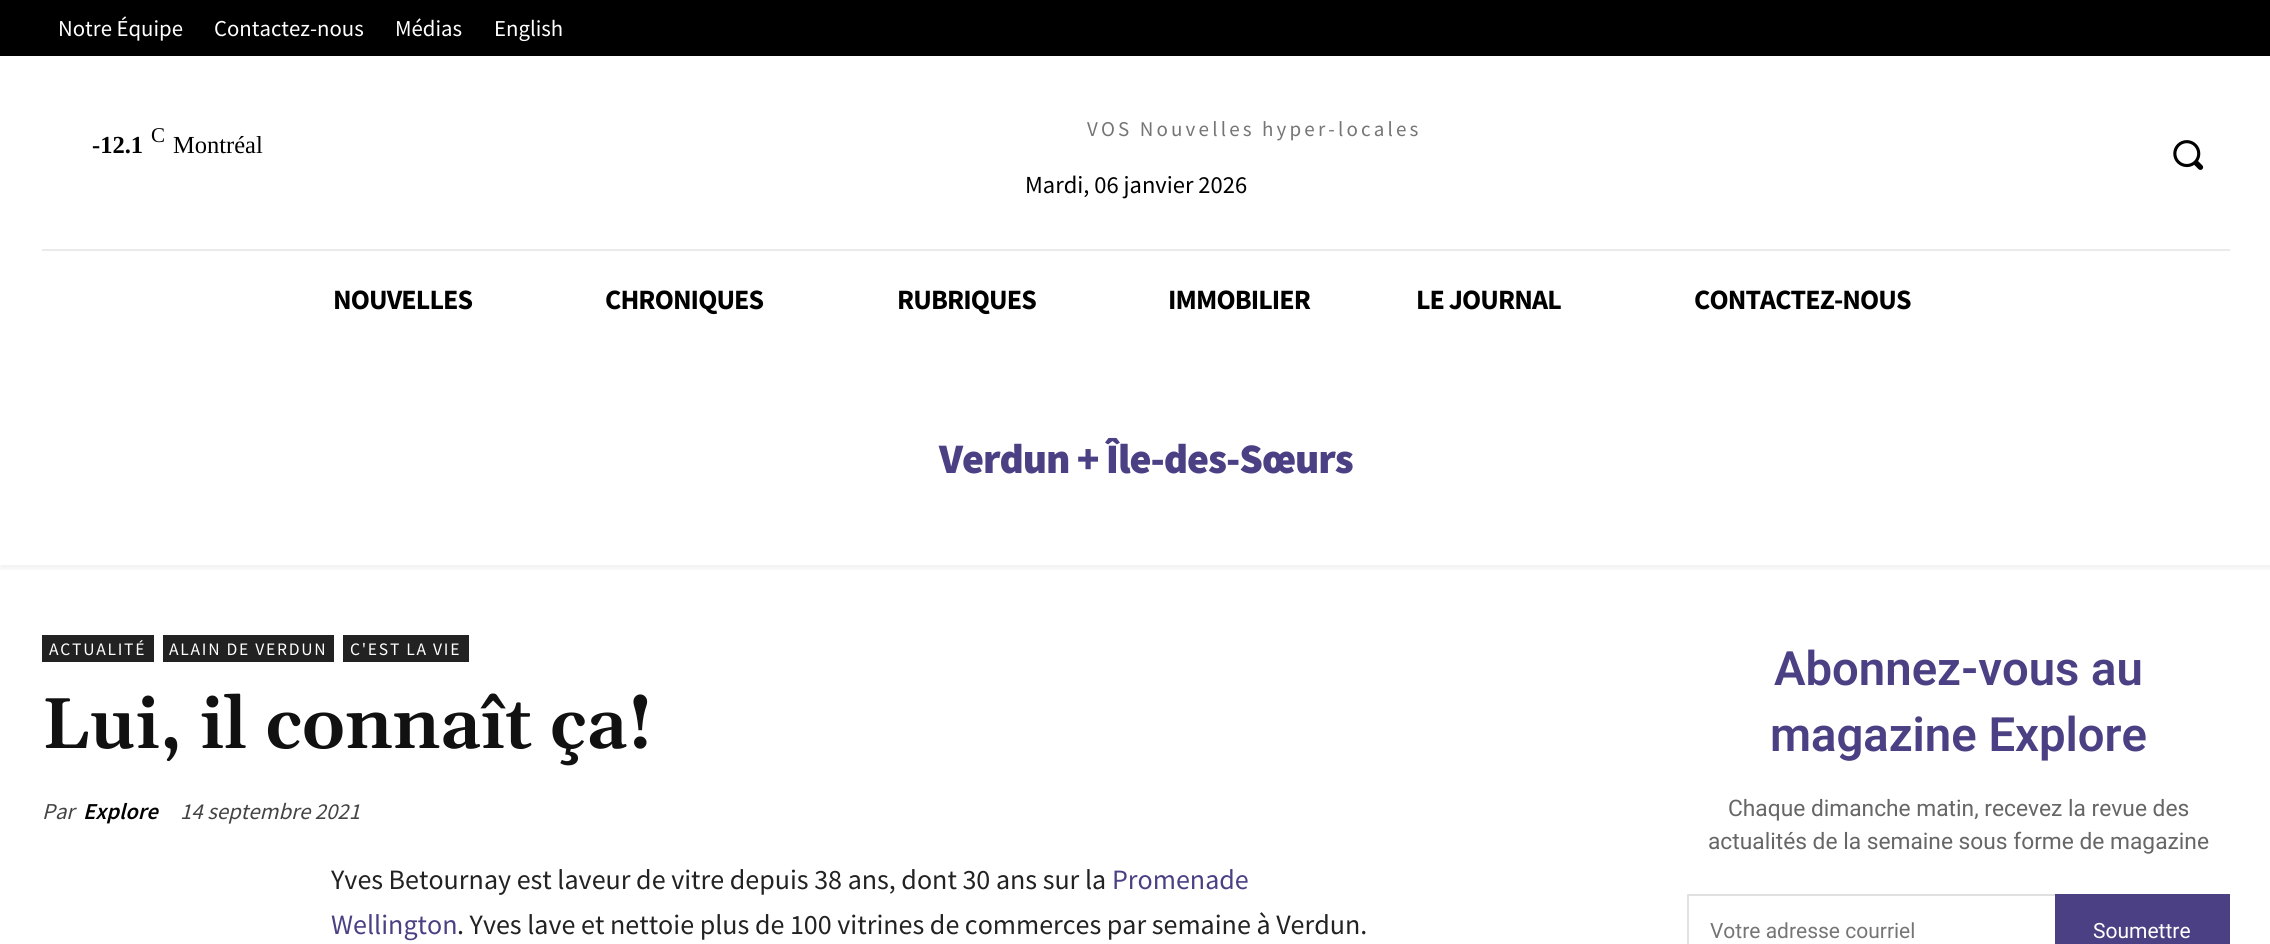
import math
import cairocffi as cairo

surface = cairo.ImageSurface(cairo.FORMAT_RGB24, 2270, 944)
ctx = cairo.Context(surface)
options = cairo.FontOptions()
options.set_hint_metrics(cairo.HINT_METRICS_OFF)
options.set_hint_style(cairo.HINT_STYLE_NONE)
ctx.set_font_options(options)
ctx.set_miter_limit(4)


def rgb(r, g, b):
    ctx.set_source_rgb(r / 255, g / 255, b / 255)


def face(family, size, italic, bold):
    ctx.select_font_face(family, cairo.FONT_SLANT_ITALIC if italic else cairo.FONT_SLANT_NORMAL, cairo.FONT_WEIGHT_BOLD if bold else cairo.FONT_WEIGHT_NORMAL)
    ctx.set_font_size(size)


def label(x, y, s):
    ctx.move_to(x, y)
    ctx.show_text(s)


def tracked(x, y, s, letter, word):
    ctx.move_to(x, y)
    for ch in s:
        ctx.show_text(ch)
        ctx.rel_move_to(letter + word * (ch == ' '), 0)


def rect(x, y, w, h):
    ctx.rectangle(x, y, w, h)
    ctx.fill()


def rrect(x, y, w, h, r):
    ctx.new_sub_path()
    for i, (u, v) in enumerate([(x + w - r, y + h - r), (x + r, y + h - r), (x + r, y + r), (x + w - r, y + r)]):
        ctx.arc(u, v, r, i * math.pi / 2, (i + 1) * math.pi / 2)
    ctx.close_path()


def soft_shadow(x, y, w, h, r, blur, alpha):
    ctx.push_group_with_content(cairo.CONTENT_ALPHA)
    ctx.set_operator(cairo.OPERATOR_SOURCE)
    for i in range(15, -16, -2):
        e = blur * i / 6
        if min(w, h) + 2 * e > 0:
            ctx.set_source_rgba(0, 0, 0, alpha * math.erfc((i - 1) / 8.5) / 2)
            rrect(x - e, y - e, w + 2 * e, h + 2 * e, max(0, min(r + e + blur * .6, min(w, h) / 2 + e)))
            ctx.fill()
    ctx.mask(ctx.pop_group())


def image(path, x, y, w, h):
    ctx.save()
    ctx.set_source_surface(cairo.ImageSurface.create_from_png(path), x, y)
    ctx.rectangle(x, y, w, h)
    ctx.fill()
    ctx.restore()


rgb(255, 255, 255)
ctx.paint()
rgb(0, 0, 0)
rect(0, 0, 2270, 56)
face('Source Sans Pro', 22.75, 0, 0)
rgb(255, 255, 255)
label(58, 36, 'Notre Équipe')
label(214, 36, 'Contactez-nous')
label(395, 36, 'Médias')
label(494, 36, 'English')
face('Liberation Serif', 24.5, 0, 1)
rgb(0, 0, 0)
label(92, 153, '-12.1')
face('Liberation Serif', 21, 0, 0)
label(151, 142, 'C')
face('Liberation Serif', 24.5, 0, 0)
label(173, 153, 'Montréal')
face('Source Sans Pro', 21, 0, 0)
rgb(117, 117, 117)
tracked(1087, 136, 'VOS Nouvelles hyper-locales', 3.15, 0)
face('Source Sans Pro', 24.5, 0, 0)
rgb(0, 0, 0)
label(1025, 193, 'Mardi, 06 janvier 2026')
image('image0.png', 2173, 140, 31, 30)
rgb(234, 234, 234)
rect(42, 249, 2188, 2)
ctx.save()
ctx.rectangle(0, 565, 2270, 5)
ctx.clip()
rgb(0, 0, 0)
soft_shadow(0, 200, 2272, 369, 0, 3.5, 0.06)
ctx.restore()
face('Source Sans Pro', 28, 0, 1)
rgb(0, 0, 0)
tracked(333, 309, 'NOUVELLES', -0.9, 0)
tracked(605, 309, 'CHRONIQUES', -0.9, 0)
tracked(897, 309, 'RUBRIQUES', -0.9, 0)
tracked(1168, 309, 'IMMOBILIER', -0.9, 0)
tracked(1416, 309, 'LE JOURNAL', -0.9, 0)
tracked(1694, 309, 'CONTACTEZ-NOUS', -0.9, 0)
face('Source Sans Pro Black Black', 42, 0, 0)
rgb(76, 64, 132)
tracked(939, 473, 'Verdun + Île-des-Sœurs', -1.05, 0)
rgb(34, 34, 34)
rect(42, 635, 112, 27)
face('Source Sans Pro', 17.5, 0, 0)
rgb(255, 255, 255)
tracked(49, 655, 'ACTUALITÉ', 1.75, 0)
rgb(34, 34, 34)
rect(163, 635, 171, 27)
rgb(255, 255, 255)
tracked(169, 655, 'ALAIN DE VERDUN', 1.75, 0)
rgb(34, 34, 34)
rect(343, 635, 126, 27)
rgb(255, 255, 255)
tracked(350, 655, 'C\'EST LA VIE', 1.75, 0)
face('Gelasio SemiBold', 71.75, 0, 0)
rgb(17, 17, 17)
label(42, 748, 'Lui, il connaît ça!')
face('Source Sans Pro', 22.75, 1, 0)
rgb(68, 68, 68)
label(42, 819, 'Par')
face('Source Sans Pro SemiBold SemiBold', 22.75, 1, 0)
rgb(0, 0, 0)
label(83, 819, 'Explore')
face('Source Sans Pro', 22.75, 1, 0)
rgb(68, 68, 68)
label(180, 819, '14 septembre 2021')
face('Source Sans Pro', 28, 0, 0)
rgb(34, 34, 34)
label(331, 889, 'Yves Betournay est laveur de vitre depuis 38 ans, dont 30 ans sur la')
rgb(76, 64, 132)
label(1112, 889, 'Promenade')
label(331, 934, 'Wellington')
rgb(34, 34, 34)
label(457, 934, '. Yves lave et nettoie plus de 100 vitrines de commerces par semaine à Verdun.')
face('Roboto SemiBold', 47.25, 0, 0)
rgb(76, 64, 132)
label(1774, 685, 'Abonnez-vous au')
label(1770, 751, 'magazine Explore')
face('Roboto', 22.75, 0, 0)
rgb(102, 102, 102)
label(1728, 816, 'Chaque dimanche matin, recevez la revue des')
label(1708, 849, 'actualités de la semaine sous forme de magazine')
rgb(225, 225, 225)
rect(1687, 894, 368, 2)
rect(1687, 894, 2, 50)
face('Roboto', 21, 0, 0)
rgb(117, 117, 117)
label(1710, 938, 'Votre adresse courriel')
rgb(76, 64, 132)
rect(2055, 894, 175, 50)
rgb(255, 255, 255)
label(2093, 938, 'Soumettre')
surface.write_to_png('render.png')
